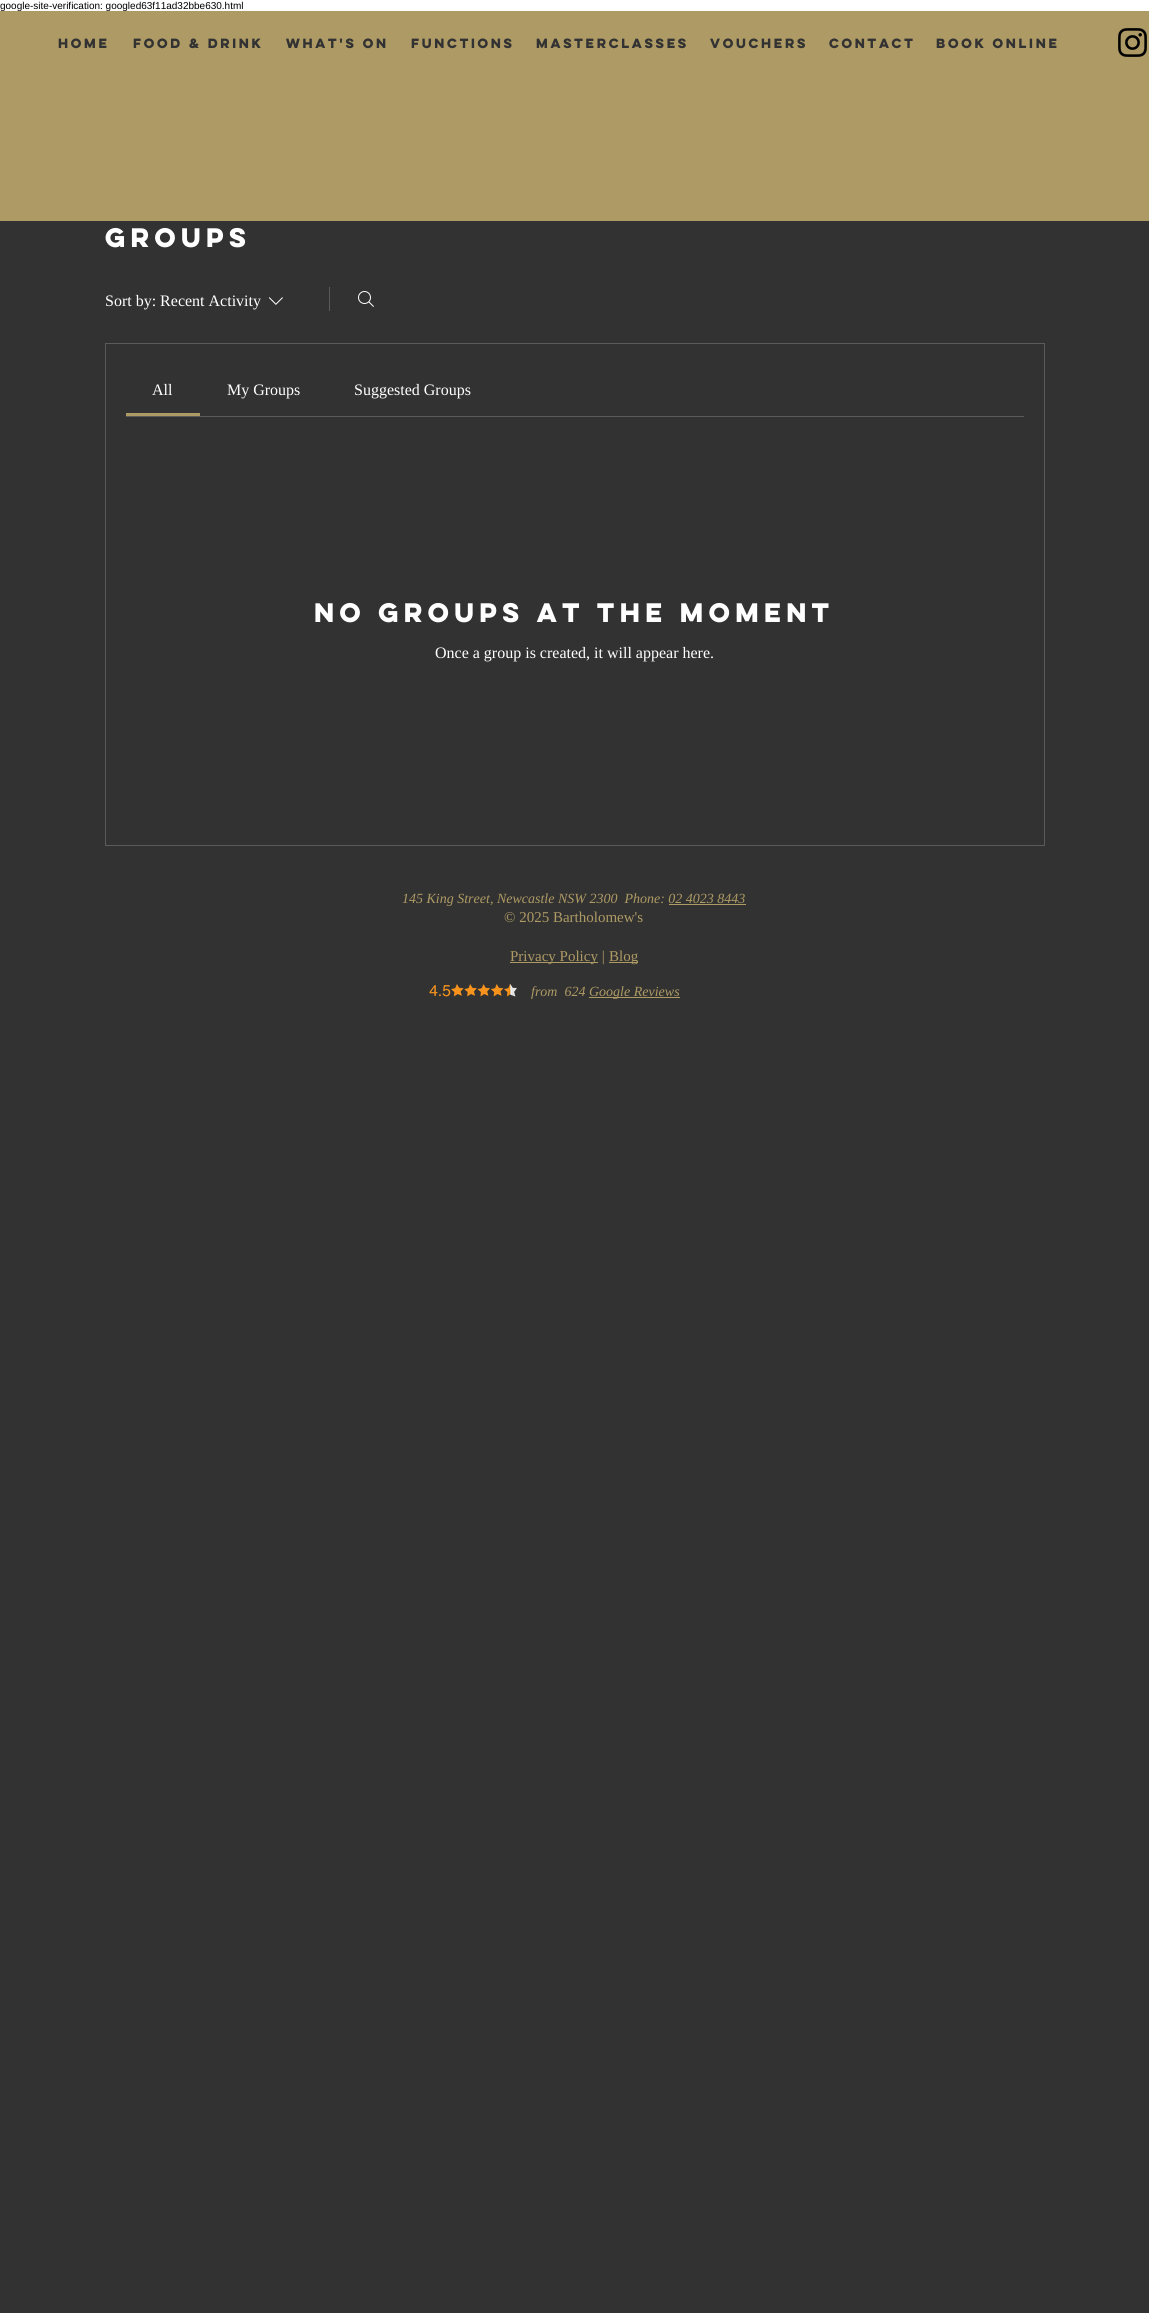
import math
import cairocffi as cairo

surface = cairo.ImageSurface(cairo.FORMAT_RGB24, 1149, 2313)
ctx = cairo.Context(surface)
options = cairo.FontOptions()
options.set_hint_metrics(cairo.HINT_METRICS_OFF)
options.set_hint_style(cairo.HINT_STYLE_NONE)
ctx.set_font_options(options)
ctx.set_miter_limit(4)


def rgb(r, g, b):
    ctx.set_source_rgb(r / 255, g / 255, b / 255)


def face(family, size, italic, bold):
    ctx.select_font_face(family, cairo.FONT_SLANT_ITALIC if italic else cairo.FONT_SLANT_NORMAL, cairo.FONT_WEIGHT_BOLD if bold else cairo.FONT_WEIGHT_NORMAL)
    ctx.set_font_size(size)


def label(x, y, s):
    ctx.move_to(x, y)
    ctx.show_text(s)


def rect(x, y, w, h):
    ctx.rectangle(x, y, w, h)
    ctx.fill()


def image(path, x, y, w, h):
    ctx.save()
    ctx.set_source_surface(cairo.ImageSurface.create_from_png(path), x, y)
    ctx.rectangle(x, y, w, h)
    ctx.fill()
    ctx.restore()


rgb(255, 255, 255)
ctx.paint()
face('Liberation Sans', 10, 0, 0)
rgb(0, 0, 0)
label(0, 9, 'google-site-verification: googled63f11ad32bbe630.html')
rgb(174, 154, 100)
rect(0, 11, 1149, 210)
face('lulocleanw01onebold', 12, 0, 1)
rgb(50, 50, 50)
label(58, 48, 'HOME')
label(133, 48, 'FOOD & DRINK')
label(286, 48, 'What\'s On')
label(411, 48, 'FUNCTIONS')
label(536, 48, 'Masterclasses')
label(710, 48, 'VOUCHERS')
label(829, 48, 'CONTACT')
label(936, 48, 'BOOK ONLINE')
image('image0.png', 1118, 28, 29, 29)
rect(0, 221, 1149, 2092)
face('lulocleanw01onebold', 24, 0, 1)
rgb(255, 255, 255)
label(105, 247, 'Groups')
face('Liberation Serif', 16, 0, 0)
label(105, 306, 'Sort by: Recent Activity')
image('image1.png', 268, 297, 15, 8)
rgb(91, 91, 91)
rect(329, 287, 1, 24)
image('image2.png', 358, 291, 16, 16)
ctx.rectangle(105.5, 343.5, 939, 502)
ctx.set_line_width(1)
ctx.stroke()
rect(126, 416, 898, 1)
rgb(174, 154, 100)
rect(126, 413, 74, 3)
rgb(255, 255, 255)
label(152, 395, 'All')
label(227, 395, 'My Groups')
label(354, 395, 'Suggested Groups')
face('lulocleanw01onebold', 24, 0, 1)
label(314, 622, 'No Groups at the Moment')
face('Liberation Serif', 16, 0, 0)
label(435, 658, 'Once a group is created, it will appear here.')
face('Liberation Serif', 14, 1, 0)
rgb(174, 154, 100)
label(402, 903, '145 King Street, Newcastle NSW 2300  Phone: 02 4023 8443')
rect(669, 904, 77, 1)
face('Liberation Serif', 15, 0, 0)
label(504, 922, '© 2025 Bartholomew\'s')
rect(510, 962, 88, 1)
label(510, 961, 'Privacy Policy |')
rect(609, 962, 29, 1)
label(609, 961, 'Blog')
image('image3.png', 429, 984, 88, 13)
face('Liberation Serif', 14, 1, 0)
label(531, 996, 'from  624')
rect(589, 997, 91, 1)
label(589, 996, 'Google Reviews')
surface.write_to_png('render.png')
